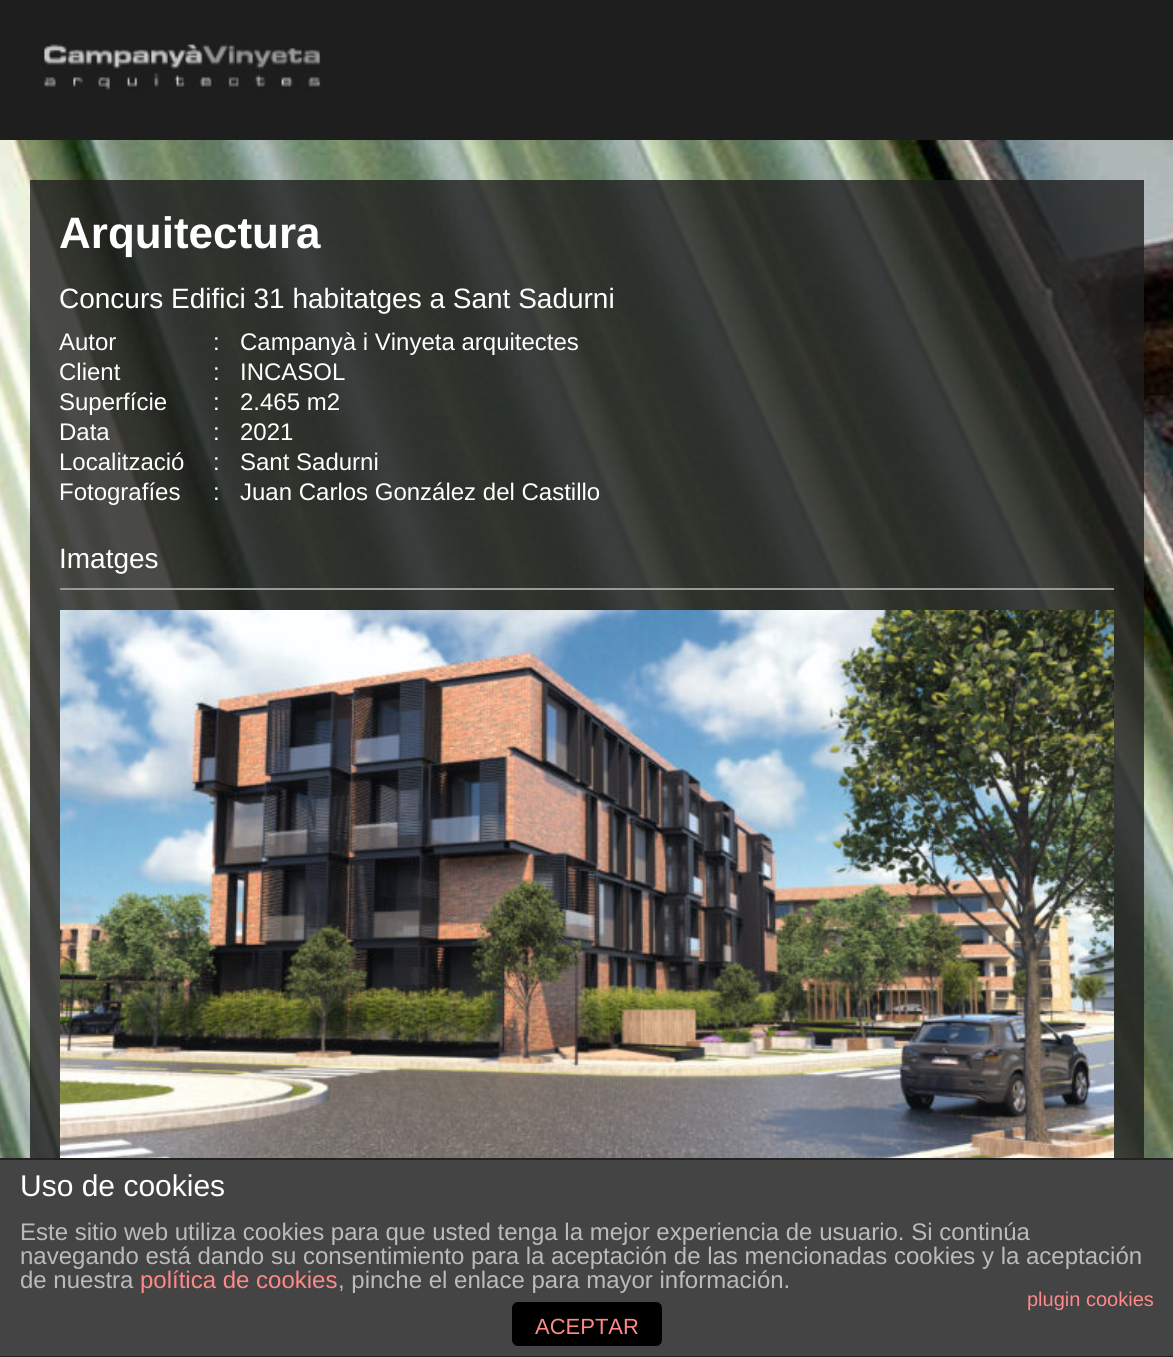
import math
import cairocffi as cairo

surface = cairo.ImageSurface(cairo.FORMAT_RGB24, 1173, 1357)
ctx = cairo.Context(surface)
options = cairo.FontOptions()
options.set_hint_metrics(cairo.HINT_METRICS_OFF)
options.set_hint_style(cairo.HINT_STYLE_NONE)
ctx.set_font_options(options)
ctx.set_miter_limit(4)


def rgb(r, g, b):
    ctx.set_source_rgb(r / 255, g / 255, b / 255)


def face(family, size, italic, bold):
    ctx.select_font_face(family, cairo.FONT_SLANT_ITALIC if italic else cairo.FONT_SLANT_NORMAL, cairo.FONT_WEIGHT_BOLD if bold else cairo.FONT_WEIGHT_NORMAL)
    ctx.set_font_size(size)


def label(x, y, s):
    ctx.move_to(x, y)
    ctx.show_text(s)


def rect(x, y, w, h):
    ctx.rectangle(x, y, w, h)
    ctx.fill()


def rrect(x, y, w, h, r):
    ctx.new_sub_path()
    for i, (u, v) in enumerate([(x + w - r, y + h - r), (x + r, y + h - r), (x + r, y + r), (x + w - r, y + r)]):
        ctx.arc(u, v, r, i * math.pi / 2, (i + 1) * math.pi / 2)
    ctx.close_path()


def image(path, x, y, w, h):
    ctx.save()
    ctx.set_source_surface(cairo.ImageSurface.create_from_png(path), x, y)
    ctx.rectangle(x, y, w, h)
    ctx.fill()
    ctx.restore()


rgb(255, 255, 255)
ctx.paint()
image('image0.png', 0, 140, 1173, 1018)
rgb(30, 30, 30)
rect(0, 0, 1173, 140)
image('image1.png', 44, 44, 277, 47)
ctx.set_source_rgba(0.118, 0.118, 0.118, 0.8)
rect(30, 180, 1114, 978)
face('Liberation Sans', 44, 0, 1)
rgb(255, 255, 255)
label(59, 248, 'Arquitectura')
face('Liberation Sans', 28, 0, 0)
label(59, 308, 'Concurs Edifici 31 habitatges a Sant Sadurni')
face('Liberation Sans', 24, 0, 0)
label(59, 350, 'Autor')
label(213, 350, ':')
label(240, 350, 'Campanyà i Vinyeta arquitectes')
label(59, 380, 'Client')
label(213, 380, ':')
label(240, 380, 'INCASOL')
label(59, 410, 'Superfície')
label(213, 410, ':')
label(240, 410, '2.465 m2')
label(59, 440, 'Data')
label(213, 440, ':')
label(240, 440, '2021')
label(59, 470, 'Localització')
label(213, 470, ':')
label(240, 470, 'Sant Sadurni')
label(59, 500, 'Fotografíes')
label(213, 500, ':')
label(240, 500, 'Juan Carlos González del Castillo')
rgb(153, 153, 153)
rect(60, 588, 1054, 2)
face('Liberation Sans', 28, 0, 0)
rgb(255, 255, 255)
label(59, 568, 'Imatges')
image('image2.png', 60, 610, 1054, 548)
rgb(68, 68, 68)
rect(0, 1160, 1173, 196)
rgb(34, 34, 34)
rect(0, 1158, 1173, 2)
rect(0, 1356, 1173, 1)
face('Liberation Sans', 30, 0, 0)
rgb(255, 255, 255)
label(20, 1196, 'Uso de cookies')
face('Liberation Sans', 24, 0, 0)
rgb(187, 187, 187)
label(20, 1240, 'Este sitio web utiliza cookies para que usted tenga la mejor experiencia de usuario. Si continúa')
label(20, 1264, 'navegando está dando su consentimiento para la aceptación de las mencionadas cookies y la aceptación')
label(20, 1288, 'de nuestra')
rgb(255, 136, 136)
label(140, 1288, 'política de cookies')
rgb(187, 187, 187)
label(338, 1288, ', pinche el enlace para mayor información.')
face('Liberation Sans', 20, 0, 0)
rgb(255, 136, 136)
label(1027, 1306, 'plugin cookies')
rgb(0, 0, 0)
rrect(512, 1302, 150, 44, 6)
ctx.fill()
face('Liberation Sans', 22, 0, 0)
rgb(255, 136, 136)
label(535, 1334, 'ACEPTAR')
surface.write_to_png('render.png')
